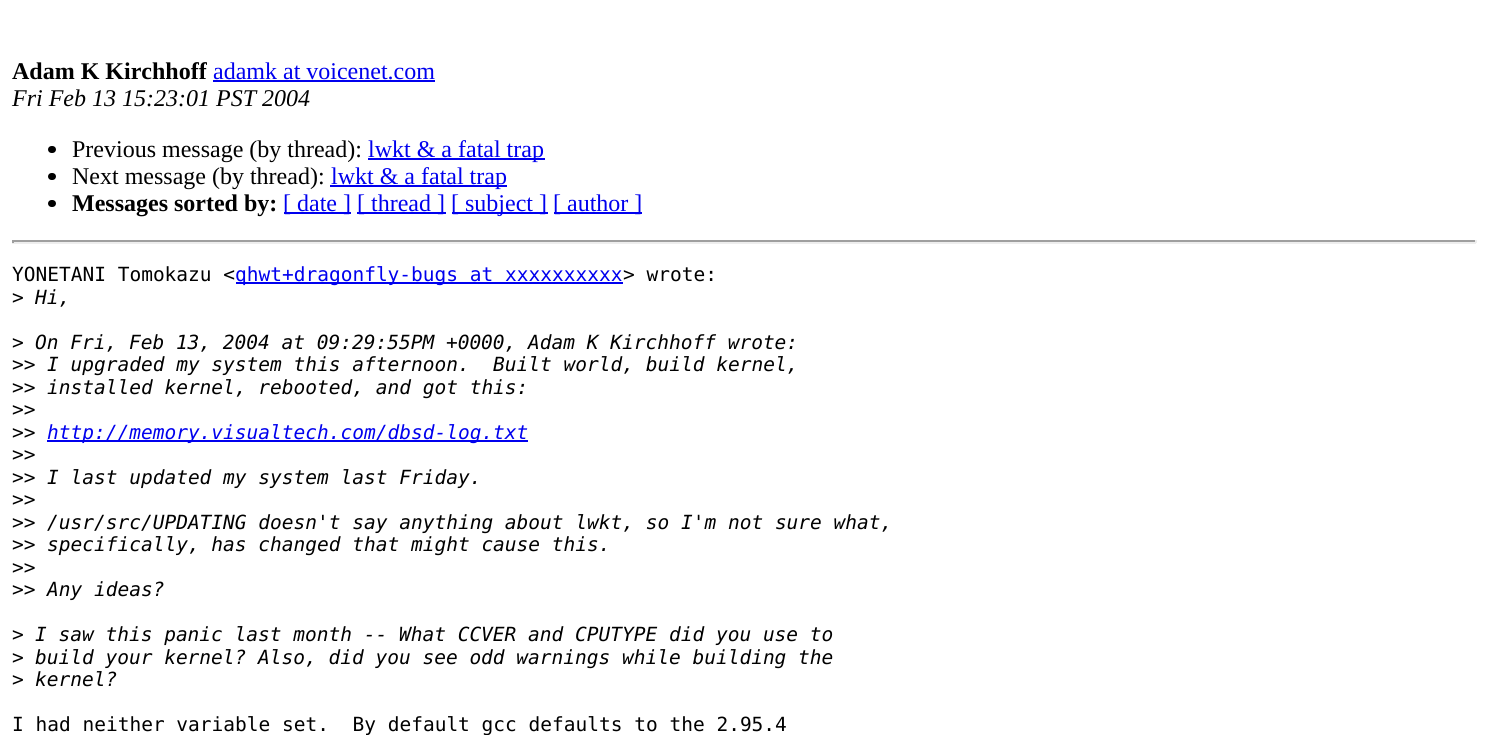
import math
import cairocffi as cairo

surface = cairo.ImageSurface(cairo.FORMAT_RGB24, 1488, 735)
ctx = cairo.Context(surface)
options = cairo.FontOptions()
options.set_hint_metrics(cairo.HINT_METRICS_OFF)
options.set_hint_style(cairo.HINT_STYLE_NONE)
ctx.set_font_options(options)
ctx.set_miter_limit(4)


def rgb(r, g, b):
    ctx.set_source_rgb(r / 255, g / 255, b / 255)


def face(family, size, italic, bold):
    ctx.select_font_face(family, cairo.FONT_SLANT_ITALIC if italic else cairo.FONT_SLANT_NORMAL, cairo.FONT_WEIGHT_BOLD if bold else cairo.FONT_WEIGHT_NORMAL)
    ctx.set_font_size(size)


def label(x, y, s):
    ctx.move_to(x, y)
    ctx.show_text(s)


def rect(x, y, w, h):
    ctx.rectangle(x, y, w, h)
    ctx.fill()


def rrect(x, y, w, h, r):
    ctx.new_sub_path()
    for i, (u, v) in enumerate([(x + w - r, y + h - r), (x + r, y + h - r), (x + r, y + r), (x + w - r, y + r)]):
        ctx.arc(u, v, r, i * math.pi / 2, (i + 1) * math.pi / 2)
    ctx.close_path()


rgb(255, 255, 255)
ctx.paint()
face('Liberation Serif', 24, 0, 1)
rgb(0, 0, 0)
label(12, 79, 'Adam K Kirchhoff')
face('Liberation Serif', 24, 0, 0)
rgb(0, 0, 238)
label(213, 79, 'adamk at voicenet.com')
rect(213, 80, 222, 2)
face('Liberation Serif', 24, 1, 0)
rgb(0, 0, 0)
label(12, 106, 'Fri Feb 13 15:23:01 PST 2004')
rrect(48, 146, 8, 7, 3.5)
ctx.fill()
face('Liberation Serif', 24, 0, 0)
label(72, 157, 'Previous message (by thread):')
rgb(0, 0, 238)
rect(368, 158, 177, 2)
label(368, 157, 'lwkt & a fatal trap')
rgb(0, 0, 0)
rrect(48, 173, 8, 7, 3.5)
ctx.fill()
label(72, 184, 'Next message (by thread):')
rgb(0, 0, 238)
rect(330, 185, 177, 2)
label(331, 184, 'lwkt & a fatal trap')
rgb(0, 0, 0)
rrect(48, 200, 8, 7, 3.5)
ctx.fill()
face('Liberation Serif', 24, 0, 1)
label(72, 211, 'Messages sorted by:')
rgb(0, 0, 238)
rect(284, 212, 67, 2)
face('Liberation Serif', 24, 0, 0)
label(283, 211, '[ date ]')
rect(357, 212, 89, 2)
label(357, 211, '[ thread ]')
rect(452, 212, 96, 2)
label(451, 211, '[ subject ]')
rect(554, 212, 88, 2)
label(553, 211, '[ author ]')
rgb(159, 159, 159)
rect(12, 240, 1464, 2)
rgb(238, 238, 238)
rect(1475, 240, 2, 3)
rect(12, 242, 1464, 2)
rgb(159, 159, 159)
rect(12, 240, 2, 3)
face('DejaVu Sans Mono', 19.5, 0, 0)
rgb(0, 0, 0)
label(12, 281, 'YONETANI Tomokazu <')
rgb(0, 0, 238)
rect(236, 282, 387, 2)
label(235, 281, 'qhwt+dragonfly-bugs at xxxxxxxxxx')
rgb(0, 0, 0)
label(623, 281, '> wrote:')
label(12, 304, '>')
face('DejaVu Sans Mono', 19.5, 1, 0)
label(35, 304, 'Hi,')
face('DejaVu Sans Mono', 19.5, 0, 0)
label(12, 349, '>')
face('DejaVu Sans Mono', 19.5, 1, 0)
label(35, 349, 'On Fri, Feb 13, 2004 at 09:29:55PM +0000, Adam K Kirchhoff wrote:')
face('DejaVu Sans Mono', 19.5, 0, 0)
label(12, 371, '>>')
face('DejaVu Sans Mono', 19.5, 1, 0)
label(47, 371, 'I upgraded my system this afternoon.  Built world, build kernel,')
face('DejaVu Sans Mono', 19.5, 0, 0)
label(12, 394, '>>')
face('DejaVu Sans Mono', 19.5, 1, 0)
label(47, 394, 'installed kernel, rebooted, and got this:')
face('DejaVu Sans Mono', 19.5, 0, 0)
label(12, 416, '>>')
label(12, 439, '>>')
rgb(0, 0, 238)
rect(47, 440, 481, 2)
face('DejaVu Sans Mono', 19.5, 1, 0)
label(47, 439, 'http://memory.visualtech.com/dbsd-log.txt')
face('DejaVu Sans Mono', 19.5, 0, 0)
rgb(0, 0, 0)
label(12, 461, '>>')
label(12, 484, '>>')
face('DejaVu Sans Mono', 19.5, 1, 0)
label(47, 484, 'I last updated my system last Friday.')
face('DejaVu Sans Mono', 19.5, 0, 0)
label(12, 506, '>>')
label(12, 529, '>>')
face('DejaVu Sans Mono', 19.5, 1, 0)
label(47, 529, '/usr/src/UPDATING doesn\'t say anything about lwkt, so I\'m not sure what,')
face('DejaVu Sans Mono', 19.5, 0, 0)
label(12, 551, '>>')
face('DejaVu Sans Mono', 19.5, 1, 0)
label(47, 551, 'specifically, has changed that might cause this.')
face('DejaVu Sans Mono', 19.5, 0, 0)
label(12, 574, '>>')
label(12, 596, '>>')
face('DejaVu Sans Mono', 19.5, 1, 0)
label(47, 596, 'Any ideas?')
face('DejaVu Sans Mono', 19.5, 0, 0)
label(12, 641, '>')
face('DejaVu Sans Mono', 19.5, 1, 0)
label(35, 641, 'I saw this panic last month -- What CCVER and CPUTYPE did you use to')
face('DejaVu Sans Mono', 19.5, 0, 0)
label(12, 664, '>')
face('DejaVu Sans Mono', 19.5, 1, 0)
label(35, 664, 'build your kernel? Also, did you see odd warnings while building the')
face('DejaVu Sans Mono', 19.5, 0, 0)
label(12, 686, '>')
face('DejaVu Sans Mono', 19.5, 1, 0)
label(35, 686, 'kernel?')
face('DejaVu Sans Mono', 19.5, 0, 0)
label(12, 731, 'I had neither variable set.  By default gcc defaults to the 2.95.4')
surface.write_to_png('render.png')
